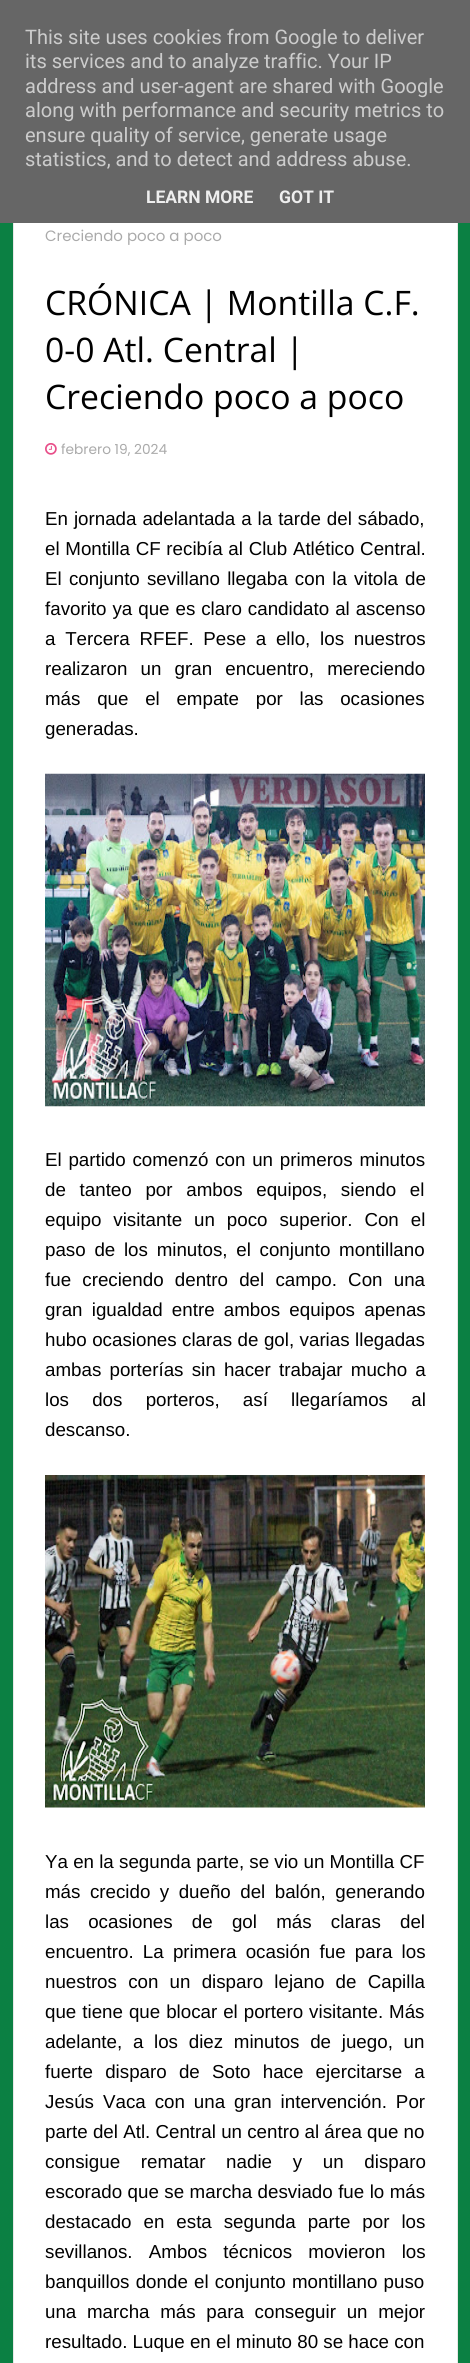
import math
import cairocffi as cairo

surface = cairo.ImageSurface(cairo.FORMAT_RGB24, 470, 2363)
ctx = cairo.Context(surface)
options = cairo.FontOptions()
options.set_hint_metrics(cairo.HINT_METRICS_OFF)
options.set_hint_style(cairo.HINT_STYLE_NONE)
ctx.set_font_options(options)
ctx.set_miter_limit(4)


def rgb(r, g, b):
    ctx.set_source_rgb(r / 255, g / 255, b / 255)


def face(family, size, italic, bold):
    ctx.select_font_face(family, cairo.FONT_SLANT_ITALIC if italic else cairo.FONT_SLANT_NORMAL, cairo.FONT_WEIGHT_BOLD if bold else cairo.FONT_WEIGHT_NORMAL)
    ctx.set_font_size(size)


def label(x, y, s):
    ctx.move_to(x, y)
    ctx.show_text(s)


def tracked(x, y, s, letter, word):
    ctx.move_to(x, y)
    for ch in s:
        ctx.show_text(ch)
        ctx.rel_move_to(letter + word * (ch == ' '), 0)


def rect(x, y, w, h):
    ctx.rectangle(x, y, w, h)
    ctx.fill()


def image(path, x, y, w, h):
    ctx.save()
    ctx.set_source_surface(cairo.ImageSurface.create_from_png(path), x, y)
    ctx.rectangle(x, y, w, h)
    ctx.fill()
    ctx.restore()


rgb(11, 128, 67)
ctx.paint()
rgb(255, 255, 255)
rect(14, 223, 443, 2140)
ctx.rectangle(13.5, 175.5, 444, 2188)
rgb(231, 231, 231)
ctx.set_line_width(1)
ctx.stroke()
rgb(102, 102, 102)
rect(0, 0, 470, 223)
face('Roboto', 20, 0, 0)
rgb(204, 204, 204)
label(25, 44, 'This site uses cookies from Google to deliver')
label(25, 68, 'its services and to analyze traffic. Your IP')
label(25, 93, 'address and user-agent are shared with Google')
label(25, 117, 'along with performance and security metrics to')
label(25, 142, 'ensure quality of service, generate usage')
label(25, 166, 'statistics, and to detect and address abuse.')
face('Roboto', 17.5, 0, 1)
rgb(238, 238, 238)
label(146, 203, 'LEARN MORE')
label(279, 203, 'GOT IT')
face('Poppins', 15, 0, 0)
rgb(170, 170, 170)
label(45, 241, 'Creciendo poco a poco')
face('Open Sans', 33.75, 0, 0)
rgb(0, 0, 0)
label(45, 315, 'CRÓNICA | Montilla C.F.')
label(45, 362, '0-0 Atl. Central |')
label(45, 409, 'Creciendo poco a poco')
image('image0.png', 45, 443, 12, 12)
face('Poppins', 13.75, 0, 0)
rgb(170, 170, 170)
label(61, 454, 'febrero 19, 2024')
face('Liberation Sans', 18.75, 0, 0)
rgb(0, 0, 0)
tracked(45, 525, 'En jornada adelantada a la tarde del sábado,', 0, 0.75)
tracked(45, 555, 'el Montilla CF recibía al Club Atlético Central.', 0, 0.5)
tracked(45, 585, 'El conjunto sevillano llegaba con la vitola de', 0, 2)
tracked(45, 615, 'favorito ya que es claro candidato al ascenso', 0, 0.75)
tracked(45, 645, 'a Tercera RFEF. Pese a ello, los nuestros', 0, 4.5)
tracked(45, 675, 'realizaron un gran encuentro, mereciendo', 0, 8)
tracked(45, 705, 'más que el empate por las ocasiones', 0, 11.5)
label(45, 735, 'generadas.')
image('image1.png', 45, 773, 380, 334)
tracked(45, 1166, 'El partido comenzó con un primeros minutos', 0, 1.5)
tracked(45, 1196, 'de tanteo por ambos equipos, siendo el', 0, 8.5)
tracked(45, 1226, 'equipo visitante un poco superior. Con el', 0, 6.75)
tracked(45, 1256, 'paso de los minutos, el conjunto montillano', 0, 3.5)
tracked(45, 1286, 'fue creciendo dentro del campo. Con una', 0, 6)
tracked(45, 1316, 'gran igualdad entre ambos equipos apenas', 0, 4)
tracked(45, 1346, 'hubo ocasiones claras de gol, varias llegadas', 0, 0.25)
tracked(45, 1376, 'ambas porterías sin hacer trabajar mucho a', 0, 3)
tracked(45, 1406, 'los dos porteros, así llegaríamos al', 0, 18)
label(45, 1436, 'descanso.')
image('image2.png', 45, 1475, 380, 333)
label(45, 1868, 'Ya en la segunda parte, se vio un Montilla CF')
tracked(45, 1898, 'más crecido y dueño del balón, generando', 0, 4.25)
tracked(45, 1928, 'las ocasiones de gol más claras del', 0, 14)
tracked(45, 1958, 'encuentro. La primera ocasión fue para los', 0, 4)
tracked(45, 1988, 'nuestros con un disparo lejano de Capilla', 0, 6)
tracked(45, 2018, 'que tiene que blocar el portero visitante. Más', 0, 0.75)
tracked(45, 2048, 'adelante, a los diez minutos de juego, un', 0, 5.5)
tracked(45, 2078, 'fuerte disparo de Soto hace ejercitarse a', 0, 7)
tracked(45, 2108, 'Jesús Vaca con una gran intervención. Por', 0, 3.75)
label(45, 2138, 'parte del Atl. Central un centro al área que no')
tracked(45, 2168, 'consigue rematar nadie y un disparo', 0, 15.5)
tracked(45, 2198, 'escorado que se marcha desviado fue lo más', 0, 0.25)
tracked(45, 2228, 'destacado en esta segunda parte por los', 0, 6.75)
tracked(45, 2258, 'sevillanos. Ambos técnicos movieron los', 0, 11)
tracked(45, 2288, 'banquillos donde el conjunto montillano puso', 0, 1)
tracked(45, 2318, 'una marcha más para conseguir un mejor', 0, 5.5)
label(45, 2348, 'resultado. Luque en el minuto 80 se hace con')
surface.write_to_png('render.png')
